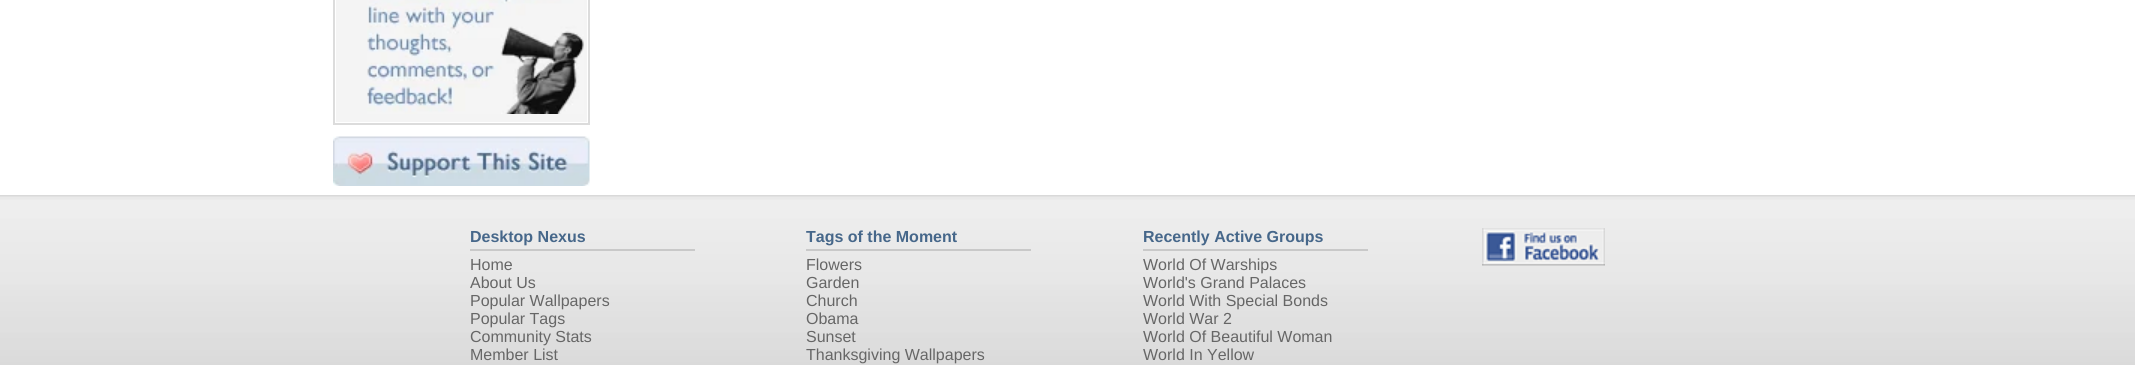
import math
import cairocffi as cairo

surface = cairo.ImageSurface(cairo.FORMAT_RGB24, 2135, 365)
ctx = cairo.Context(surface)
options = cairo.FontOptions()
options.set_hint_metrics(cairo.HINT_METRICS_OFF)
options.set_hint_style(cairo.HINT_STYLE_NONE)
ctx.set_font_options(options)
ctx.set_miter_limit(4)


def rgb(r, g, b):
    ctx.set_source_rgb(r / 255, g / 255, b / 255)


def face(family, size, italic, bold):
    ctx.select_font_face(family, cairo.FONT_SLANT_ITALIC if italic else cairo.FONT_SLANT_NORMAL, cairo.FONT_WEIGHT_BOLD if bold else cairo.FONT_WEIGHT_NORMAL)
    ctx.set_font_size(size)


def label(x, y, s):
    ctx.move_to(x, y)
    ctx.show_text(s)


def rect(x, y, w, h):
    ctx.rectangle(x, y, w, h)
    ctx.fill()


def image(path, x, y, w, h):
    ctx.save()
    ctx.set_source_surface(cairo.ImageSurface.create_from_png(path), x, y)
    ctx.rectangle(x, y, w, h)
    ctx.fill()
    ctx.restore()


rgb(255, 255, 255)
ctx.paint()
ctx.rectangle(334, -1, 255, 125)
rgb(220, 220, 220)
ctx.stroke()
rgb(244, 244, 244)
rect(336, 0, 251, 122)
image('image0.png', 367, 0, 217, 114)
image('image1.png', 333, 136, 257, 50)
image('image2.png', 0, 195, 2135, 170)
face('Liberation Sans', 16, 0, 1)
rgb(70, 103, 138)
label(470, 242, 'Desktop Nexus')
rgb(201, 201, 201)
rect(470, 249, 225, 2)
face('Liberation Sans', 16, 0, 0)
rgb(102, 102, 102)
label(470, 270, 'Home')
label(470, 288, 'About Us')
label(470, 306, 'Popular Wallpapers')
label(470, 324, 'Popular Tags')
label(470, 342, 'Community Stats')
label(470, 360, 'Member List')
face('Liberation Sans', 16, 0, 1)
rgb(70, 103, 138)
label(806, 242, 'Tags of the Moment')
rgb(201, 201, 201)
rect(806, 249, 225, 2)
face('Liberation Sans', 16, 0, 0)
rgb(102, 102, 102)
label(806, 270, 'Flowers')
label(806, 288, 'Garden')
label(806, 306, 'Church')
label(806, 324, 'Obama')
label(806, 342, 'Sunset')
label(806, 360, 'Thanksgiving Wallpapers')
face('Liberation Sans', 16, 0, 1)
rgb(70, 103, 138)
label(1143, 242, 'Recently Active Groups')
rgb(201, 201, 201)
rect(1143, 249, 225, 2)
face('Liberation Sans', 16, 0, 0)
rgb(102, 102, 102)
label(1143, 270, 'World Of Warships')
label(1143, 288, 'World\'s Grand Palaces')
label(1143, 306, 'World With Special Bonds')
label(1143, 324, 'World War 2')
label(1143, 342, 'World Of Beautiful Woman')
label(1143, 360, 'World In Yellow')
image('image3.png', 1482, 228, 123, 38)
surface.write_to_png('render.png')
